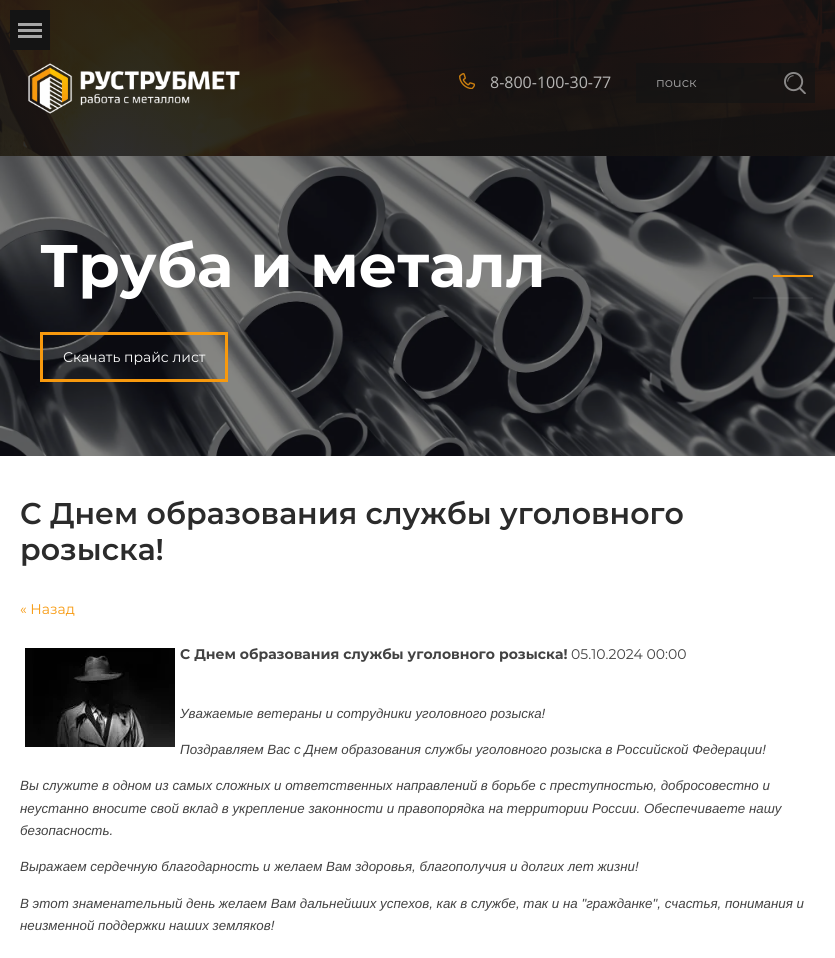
import math
import cairocffi as cairo

surface = cairo.ImageSurface(cairo.FORMAT_RGB24, 835, 958)
ctx = cairo.Context(surface)
options = cairo.FontOptions()
options.set_hint_metrics(cairo.HINT_METRICS_OFF)
options.set_hint_style(cairo.HINT_STYLE_NONE)
ctx.set_font_options(options)
ctx.set_miter_limit(4)


def rgb(r, g, b):
    ctx.set_source_rgb(r / 255, g / 255, b / 255)


def face(family, size, italic, bold):
    ctx.select_font_face(family, cairo.FONT_SLANT_ITALIC if italic else cairo.FONT_SLANT_NORMAL, cairo.FONT_WEIGHT_BOLD if bold else cairo.FONT_WEIGHT_NORMAL)
    ctx.set_font_size(size)


def label(x, y, s):
    ctx.move_to(x, y)
    ctx.show_text(s)


def rect(x, y, w, h):
    ctx.rectangle(x, y, w, h)
    ctx.fill()


def image(path, x, y, w, h):
    ctx.save()
    ctx.set_source_surface(cairo.ImageSurface.create_from_png(path), x, y)
    ctx.rectangle(x, y, w, h)
    ctx.fill()
    ctx.restore()


rgb(255, 255, 255)
ctx.paint()
image('image0.png', 0, 0, 835, 156)
rgb(20, 20, 20)
rect(10, 10, 40, 40)
rgb(166, 166, 166)
rect(18, 23, 24, 3)
rect(18, 29, 24, 3)
rect(18, 35, 24, 3)
image('image1.png', 28, 63, 212, 51)
image('image2.png', 459, 73, 16, 16)
face('Open Sans', 16, 0, 0)
rgb(181, 180, 179)
label(490, 88, '8-800-100-30-77')
ctx.set_source_rgba(0.078, 0.078, 0.078, 0.72)
rect(636, 63, 179, 40)
face('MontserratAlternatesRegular', 13, 0, 0)
rgb(164, 163, 163)
label(656, 87, 'поиск')
image('image3.png', 784, 72, 22, 22)
image('image4.png', 0, 156, 835, 300)
face('Montserrat', 60, 0, 1)
rgb(255, 255, 255)
label(40, 287, 'Труба и металл')
ctx.rectangle(41.5, 333.5, 185, 47)
rgb(247, 153, 14)
ctx.set_line_width(3)
ctx.stroke()
face('Montserrat', 14, 0, 0)
rgb(255, 255, 255)
label(63, 362, 'Скачать прайс лист')
rgb(247, 153, 14)
rect(773, 275, 40, 2)
ctx.set_source_rgba(1, 1, 1, 0.05)
rect(753, 297, 60, 2)
face('Montserrat SemiBold', 30, 0, 0)
rgb(43, 43, 43)
label(20, 524, 'С Днем образования службы уголовного')
label(20, 560, 'розыска!')
face('Montserrat', 14, 0, 0)
rgb(247, 153, 14)
label(20, 614, '« Назад')
image('image5.png', 25, 648, 150, 99)
face('Montserrat', 14, 0, 1)
rgb(66, 66, 66)
label(180, 659, 'С Днем образования службы уголовного розыска!')
face('Montserrat', 14, 0, 0)
label(571, 659, '05.10.2024 00:00')
face('Liberation Sans', 13.33, 1, 0)
label(180, 718, 'Уважаемые ветераны и сотрудники уголовного розыска!')
label(180, 754, 'Поздравляем Вас с Днем образования службы уголовного розыска в Российской Федерации!')
label(20, 790, 'Вы служите в одном из самых сложных и ответственных направлений в борьбе с преступностью, добросовестно и')
label(20, 813, 'неустанно вносите свой вклад в укрепление законности и правопорядка на территории России. Обеспечиваете нашу')
label(20, 835, 'безопасность.')
label(20, 871, 'Выражаем сердечную благодарность и желаем Вам здоровья, благополучия и долгих лет жизни!')
label(20, 908, 'В этот знаменательный день желаем Вам дальнейших успехов, как в службе, так и на "гражданке", счастья, понимания и')
label(20, 930, 'неизменной поддержки наших земляков!')
surface.write_to_png('render.png')
